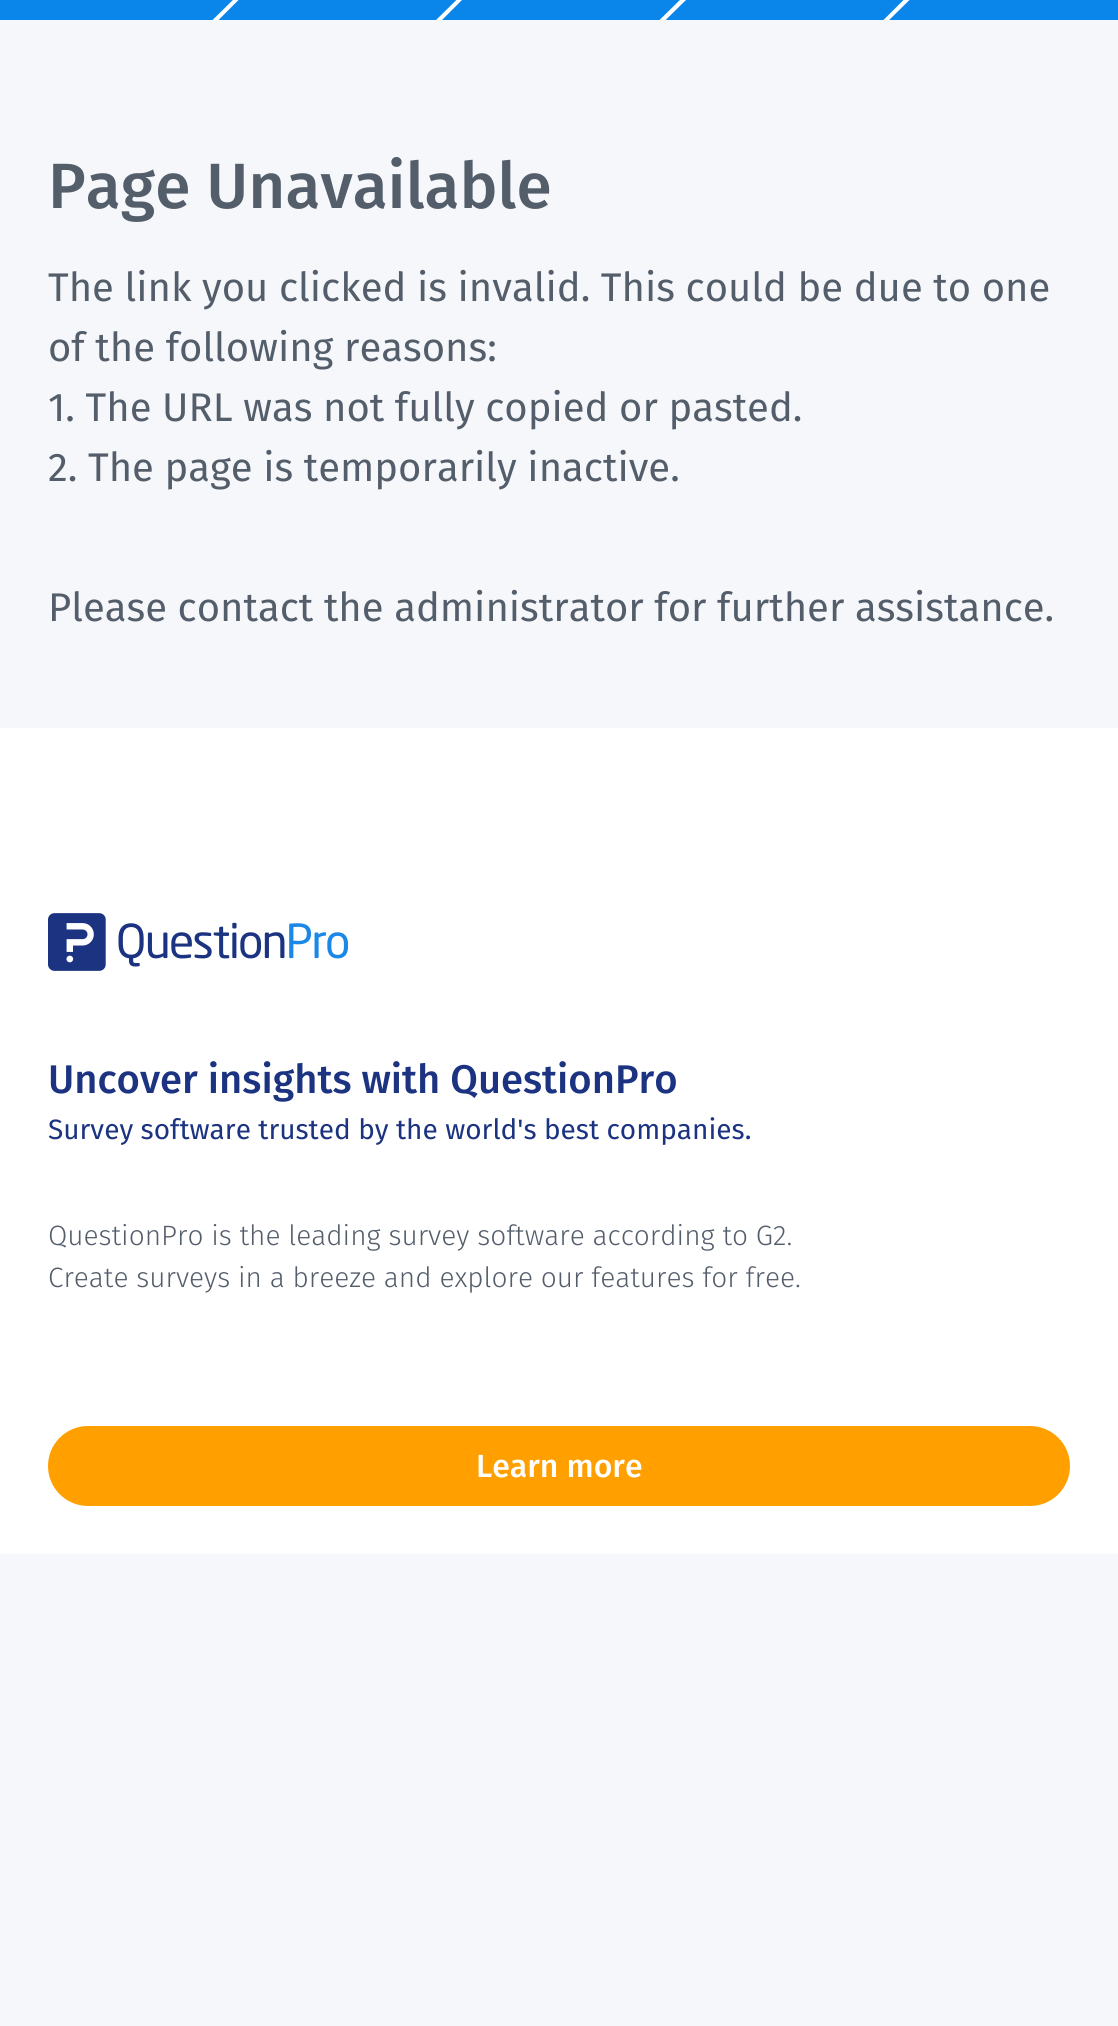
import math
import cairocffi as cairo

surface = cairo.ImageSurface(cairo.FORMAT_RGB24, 1118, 2026)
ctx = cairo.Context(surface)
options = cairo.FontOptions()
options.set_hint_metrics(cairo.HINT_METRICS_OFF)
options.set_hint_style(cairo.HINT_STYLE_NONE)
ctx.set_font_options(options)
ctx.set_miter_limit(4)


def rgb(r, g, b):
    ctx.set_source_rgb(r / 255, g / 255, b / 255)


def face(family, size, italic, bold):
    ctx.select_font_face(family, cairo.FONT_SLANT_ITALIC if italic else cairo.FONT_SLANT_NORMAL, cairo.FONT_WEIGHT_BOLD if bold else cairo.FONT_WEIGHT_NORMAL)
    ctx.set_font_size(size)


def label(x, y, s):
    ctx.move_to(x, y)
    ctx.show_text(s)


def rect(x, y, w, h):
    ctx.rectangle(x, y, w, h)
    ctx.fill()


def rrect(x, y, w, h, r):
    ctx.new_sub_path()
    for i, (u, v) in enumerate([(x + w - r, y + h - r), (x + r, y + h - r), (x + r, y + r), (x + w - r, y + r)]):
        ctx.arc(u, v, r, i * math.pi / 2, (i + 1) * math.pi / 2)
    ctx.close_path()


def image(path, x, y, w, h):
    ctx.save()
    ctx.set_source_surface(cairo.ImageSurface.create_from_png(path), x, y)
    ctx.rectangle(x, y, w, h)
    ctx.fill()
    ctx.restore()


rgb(245, 247, 250)
ctx.paint()
rgb(10, 134, 234)
rect(0, 0, 1118, 20)
ctx.save()
ctx.rectangle(0, 0, 1118, 20)
ctx.clip()
rgb(255, 255, 255)
ctx.new_path()
ctx.move_to(238.5, -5.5)
ctx.line_to(241, -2.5)
ctx.line_to(213, 25.5)
ctx.line_to(210, 22.5)
ctx.close_path()
ctx.fill()
ctx.new_path()
ctx.move_to(462, -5.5)
ctx.line_to(464.5, -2.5)
ctx.line_to(436.5, 25.5)
ctx.line_to(433.5, 22.5)
ctx.close_path()
ctx.fill()
ctx.new_path()
ctx.move_to(685.5, -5.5)
ctx.line_to(688.5, -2.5)
ctx.line_to(660, 25.5)
ctx.line_to(657, 22.5)
ctx.close_path()
ctx.fill()
ctx.new_path()
ctx.move_to(909, -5.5)
ctx.line_to(912, -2.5)
ctx.line_to(883.5, 25.5)
ctx.line_to(881, 22.5)
ctx.close_path()
ctx.fill()
ctx.restore()
face('Fira Sans Medium', 64, 0, 0)
rgb(84, 94, 107)
label(48, 208, 'Page Unavailable')
face('Fira Sans', 40, 0, 0)
label(48, 301, 'The link you clicked is invalid. This could be due to one')
label(48, 361, 'of the following reasons:')
label(48, 421, '1. The URL was not fully copied or pasted.')
label(48, 481, '2. The page is temporarily inactive.')
label(48, 621, 'Please contact the administrator for further assistance.')
rgb(255, 255, 255)
rect(0, 728, 1118, 826)
image('image0.png', 48, 913, 300, 58)
face('Fira Sans Medium', 40, 0, 0)
rgb(27, 51, 128)
label(48, 1093, 'Uncover insights with QuestionPro')
face('Fira Sans', 28, 0, 0)
label(48, 1139, 'Survey software trusted by the world\'s best companies.')
face('Fira Sans Light', 28, 0, 0)
rgb(84, 94, 107)
label(48, 1245, 'QuestionPro is the leading survey software according to G2.')
label(48, 1287, 'Create surveys in a breeze and explore our features for free.')
rgb(255, 159, 0)
rrect(48, 1426, 1022, 80, 40)
ctx.fill()
face('Fira Sans Medium', 32, 0, 0)
rgb(255, 255, 255)
label(476, 1477, 'Learn more')
surface.write_to_png('render.png')
